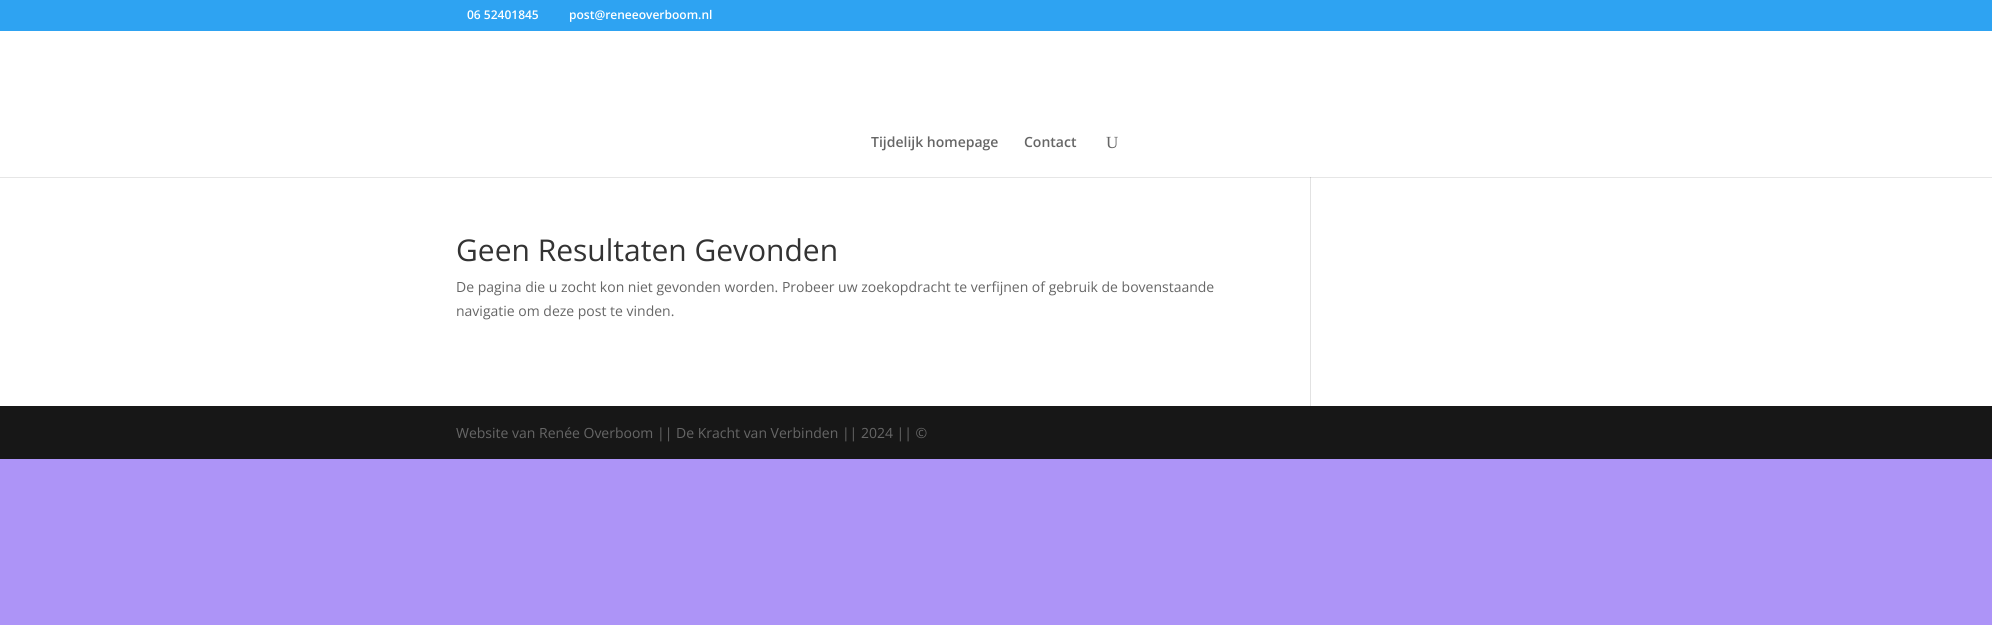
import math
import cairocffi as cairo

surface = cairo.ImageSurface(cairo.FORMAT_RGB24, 1992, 625)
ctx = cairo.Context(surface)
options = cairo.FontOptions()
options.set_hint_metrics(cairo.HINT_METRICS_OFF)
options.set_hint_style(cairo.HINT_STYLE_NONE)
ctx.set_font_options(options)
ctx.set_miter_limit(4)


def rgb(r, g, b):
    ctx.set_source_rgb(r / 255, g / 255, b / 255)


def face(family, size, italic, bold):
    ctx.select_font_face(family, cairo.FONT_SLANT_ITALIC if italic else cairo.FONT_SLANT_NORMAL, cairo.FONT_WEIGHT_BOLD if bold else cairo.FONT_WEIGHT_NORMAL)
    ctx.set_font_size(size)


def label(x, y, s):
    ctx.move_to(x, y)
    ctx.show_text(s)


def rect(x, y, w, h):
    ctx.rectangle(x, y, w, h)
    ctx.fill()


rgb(173, 148, 247)
ctx.paint()
rgb(46, 163, 242)
rect(0, 0, 1992, 31)
face('Open Sans SemiBold', 12, 0, 0)
rgb(255, 255, 255)
label(467, 19, '06 52401845')
label(569, 19, 'post@reneeoverboom.nl')
rect(0, 31, 1992, 146)
face('Open Sans SemiBold', 14, 0, 0)
rgb(102, 102, 102)
label(871, 147, 'Tijdelijk homepage')
label(1024, 147, 'Contact')
face('Liberation Serif', 17, 0, 0)
label(1106, 148, 'U')
rgb(255, 255, 255)
rect(0, 178, 1992, 228)
rgb(230, 230, 230)
rect(0, 177, 1992, 1)
face('Open Sans', 30, 0, 0)
rgb(51, 51, 51)
label(456, 261, 'Geen Resultaten Gevonden')
face('Open Sans', 14, 0, 0)
rgb(102, 102, 102)
label(456, 292, 'De pagina die u zocht kon niet gevonden worden. Probeer uw zoekopdracht te verfijnen of gebruik de bovenstaande')
label(456, 316, 'navigatie om deze post te vinden.')
rgb(226, 226, 226)
rect(1310, 177, 1, 229)
rgb(203, 203, 203)
rect(1310, 177, 1, 1)
rgb(23, 23, 23)
rect(0, 406, 1992, 53)
rgb(102, 102, 102)
label(456, 438, 'Website van Renée Overboom || De Kracht van Verbinden || 2024 || ©')
surface.write_to_png('render.png')
